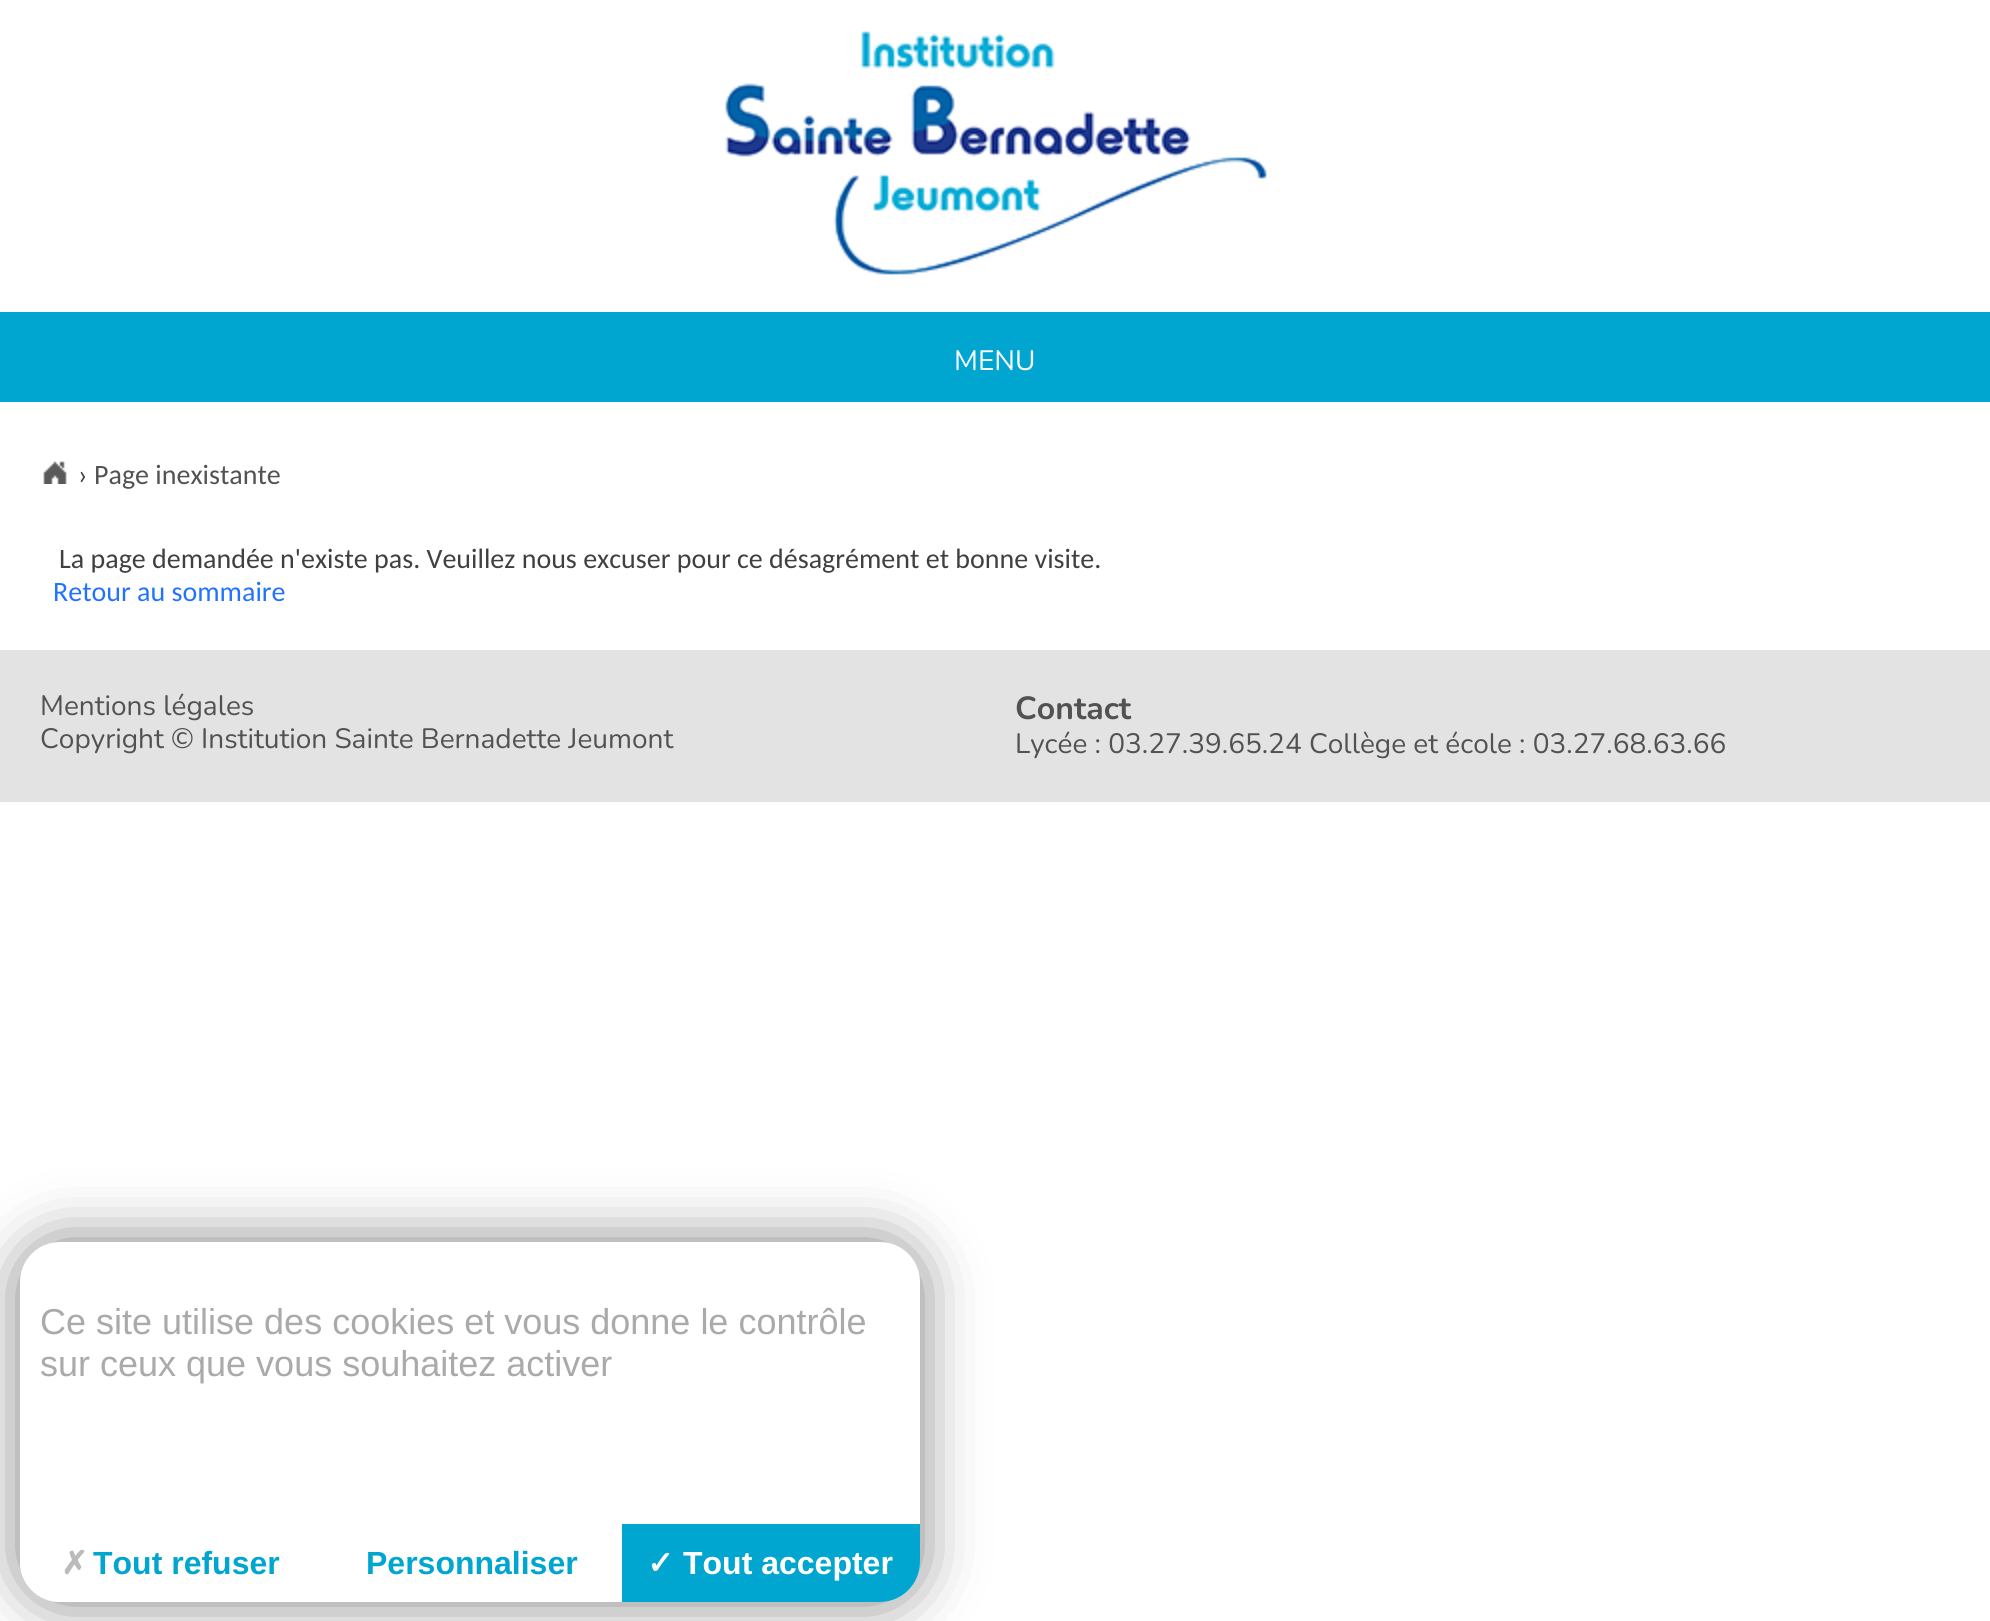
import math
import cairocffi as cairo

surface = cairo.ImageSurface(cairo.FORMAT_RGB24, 1990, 1621)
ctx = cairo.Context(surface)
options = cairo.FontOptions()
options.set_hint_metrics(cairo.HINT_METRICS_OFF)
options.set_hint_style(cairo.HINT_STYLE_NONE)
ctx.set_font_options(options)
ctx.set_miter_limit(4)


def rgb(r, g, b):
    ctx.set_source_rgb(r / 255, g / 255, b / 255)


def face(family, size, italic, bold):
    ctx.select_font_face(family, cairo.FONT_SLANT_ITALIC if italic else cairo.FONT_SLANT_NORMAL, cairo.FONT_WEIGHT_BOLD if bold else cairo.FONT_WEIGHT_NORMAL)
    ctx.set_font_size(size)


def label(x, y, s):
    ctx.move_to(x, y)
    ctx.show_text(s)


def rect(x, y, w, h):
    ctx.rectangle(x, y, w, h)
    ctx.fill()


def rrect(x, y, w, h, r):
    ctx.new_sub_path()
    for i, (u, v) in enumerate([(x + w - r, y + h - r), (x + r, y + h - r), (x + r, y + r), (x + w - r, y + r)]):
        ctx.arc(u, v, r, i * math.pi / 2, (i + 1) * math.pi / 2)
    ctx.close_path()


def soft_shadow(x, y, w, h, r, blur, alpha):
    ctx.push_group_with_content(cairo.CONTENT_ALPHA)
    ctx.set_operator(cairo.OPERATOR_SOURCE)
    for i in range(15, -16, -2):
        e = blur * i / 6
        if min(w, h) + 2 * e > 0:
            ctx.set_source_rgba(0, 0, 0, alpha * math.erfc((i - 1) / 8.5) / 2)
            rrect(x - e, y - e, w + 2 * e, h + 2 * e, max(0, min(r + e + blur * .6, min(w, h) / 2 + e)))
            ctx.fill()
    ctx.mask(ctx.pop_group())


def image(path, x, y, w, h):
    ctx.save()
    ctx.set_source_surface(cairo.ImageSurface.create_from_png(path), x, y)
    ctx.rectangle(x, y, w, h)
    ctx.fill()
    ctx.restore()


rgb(255, 255, 255)
ctx.paint()
image('image0.png', 725, 31, 542, 244)
rgb(0, 166, 208)
rect(0, 312, 1990, 90)
face('Nunito', 28, 0, 0)
rgb(255, 255, 255)
label(954, 370, 'MENU')
image('image1.png', 43, 461, 24, 23)
face('Carlito', 28, 0, 0)
rgb(64, 64, 64)
label(78, 484, '›')
rgb(82, 82, 82)
label(94, 484, 'Page inexistante')
rgb(64, 64, 64)
label(59, 568, 'La page demandée n\'existe pas. Veuillez nous excuser pour ce désagrément et bonne visite.')
rgb(33, 115, 255)
label(53, 601, 'Retour au sommaire')
rgb(227, 227, 227)
rect(0, 650, 1990, 152)
face('Nunito', 28, 0, 0)
rgb(82, 82, 82)
label(40, 715, 'Mentions légales')
label(40, 748, 'Copyright © Institution Sainte Bernadette Jeumont')
face('Nunito', 32, 0, 1)
label(1015, 719, 'Contact')
face('Nunito', 28, 0, 0)
label(1015, 753, 'Lycée : 03.27.39.65.24 Collège et école : 03.27.68.63.66')
rgb(0, 0, 0)
soft_shadow(20, 1242, 900, 360, 40, 30, 0.5)
rgb(255, 255, 255)
rrect(20, 1242, 900, 360, 40)
ctx.fill()
face('Liberation Sans', 36, 0, 0)
rgb(170, 170, 170)
label(40, 1334, 'Ce site utilise des cookies et vous donne le contrôle')
label(40, 1376, 'sur ceux que vous souhaitez activer')
rgb(255, 255, 255)
ctx.new_path()
ctx.move_to(20, 1524)
ctx.line_to(320, 1524)
ctx.line_to(320, 1602)
ctx.line_to(60, 1602)
ctx.curve_to(38, 1602, 20, 1584, 20, 1562)
ctx.close_path()
ctx.fill()
face('DejaVu Sans', 32, 0, 1)
rgb(187, 187, 187)
label(61, 1574, '✗')
face('Liberation Sans', 32, 0, 1)
rgb(0, 166, 208)
label(93, 1574, 'Tout refuser')
ctx.new_path()
ctx.move_to(620, 1524)
ctx.line_to(920, 1524)
ctx.line_to(920, 1562)
ctx.curve_to(920, 1584, 902, 1602, 880, 1602)
ctx.line_to(620, 1602)
ctx.close_path()
ctx.fill()
rgb(255, 255, 255)
rect(620, 1524, 2, 78)
rgb(0, 166, 208)
label(366, 1574, 'Personnaliser')
face('DejaVu Sans', 32, 0, 1)
rgb(255, 255, 255)
label(647, 1574, '✓')
face('Liberation Sans', 32, 0, 1)
label(683, 1574, 'Tout accepter')
surface.write_to_png('render.png')
